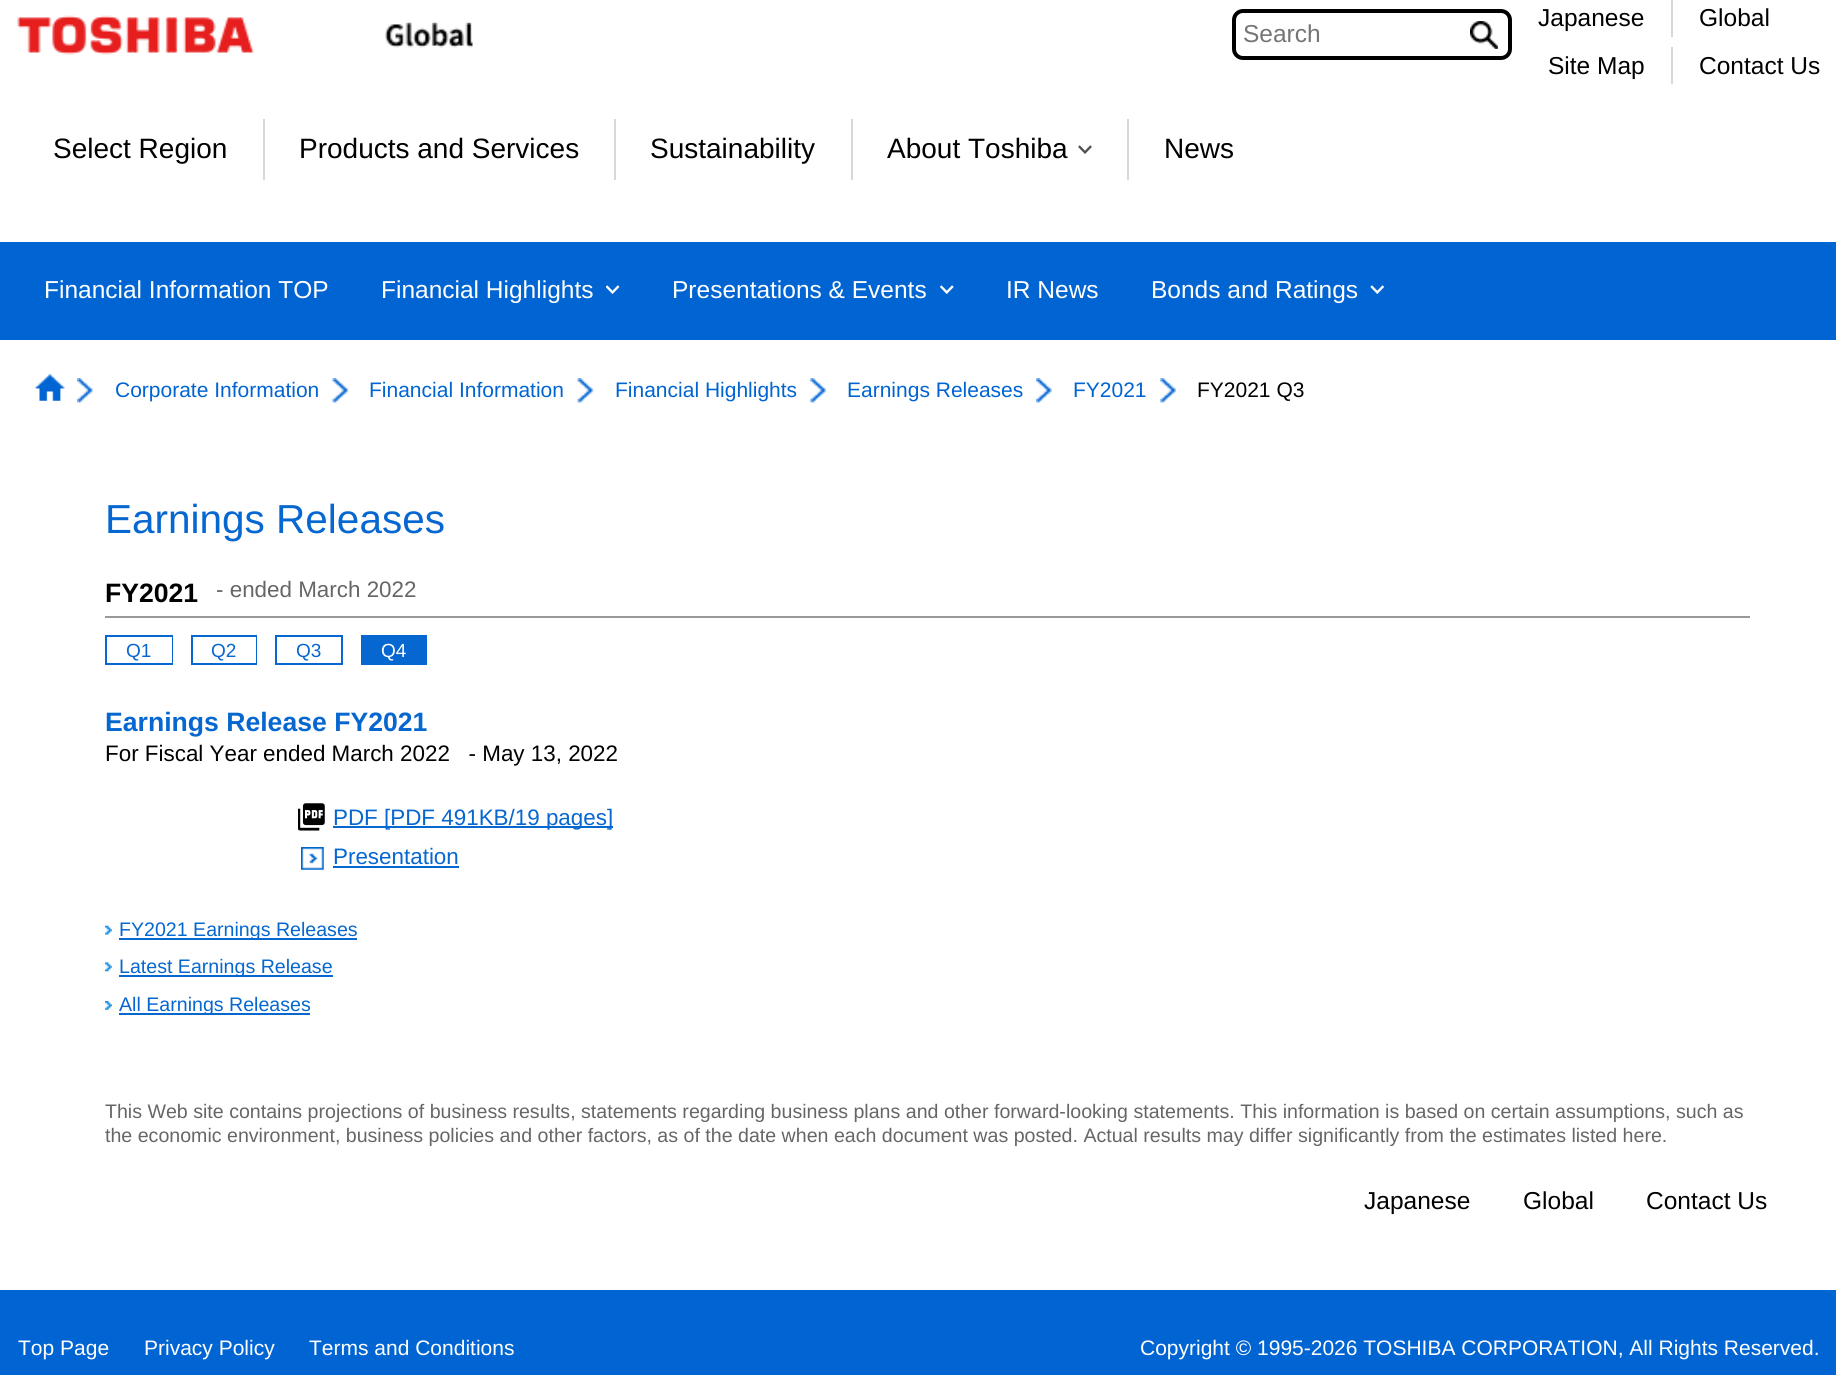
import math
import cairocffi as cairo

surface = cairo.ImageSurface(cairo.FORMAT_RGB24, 1836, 1375)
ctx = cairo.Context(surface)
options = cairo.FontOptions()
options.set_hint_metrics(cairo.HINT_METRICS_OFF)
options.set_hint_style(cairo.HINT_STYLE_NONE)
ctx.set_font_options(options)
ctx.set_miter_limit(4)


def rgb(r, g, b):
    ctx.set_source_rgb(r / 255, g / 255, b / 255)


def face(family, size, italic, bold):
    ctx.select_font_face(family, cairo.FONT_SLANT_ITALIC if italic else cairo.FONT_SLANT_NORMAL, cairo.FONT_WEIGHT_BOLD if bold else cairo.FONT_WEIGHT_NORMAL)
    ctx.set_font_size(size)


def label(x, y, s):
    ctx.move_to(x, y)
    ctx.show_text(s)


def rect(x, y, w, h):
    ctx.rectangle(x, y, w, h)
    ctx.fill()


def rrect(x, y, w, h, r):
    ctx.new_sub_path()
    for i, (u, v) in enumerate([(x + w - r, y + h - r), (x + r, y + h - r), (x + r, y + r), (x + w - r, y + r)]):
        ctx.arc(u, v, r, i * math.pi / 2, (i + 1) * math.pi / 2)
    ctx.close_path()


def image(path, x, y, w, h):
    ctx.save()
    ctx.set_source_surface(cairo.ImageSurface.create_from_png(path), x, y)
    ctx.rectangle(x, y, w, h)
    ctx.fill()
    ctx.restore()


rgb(255, 255, 255)
ctx.paint()
image('image0.png', 17, 15, 238, 40)
image('image1.png', 385, 22, 88, 26)
rrect(1234, 11, 276, 47, 9)
rgb(0, 0, 0)
ctx.set_line_width(4)
ctx.stroke()
face('Liberation Sans', 24.5, 0, 0)
rgb(117, 117, 117)
label(1243, 42, 'Search')
image('image2.png', 1470, 21, 28, 28)
rgb(0, 0, 0)
label(1538, 26, 'Japanese')
label(1548, 74, 'Site Map')
rgb(216, 216, 216)
rect(1671, 0, 2, 37)
rgb(0, 0, 0)
label(1699, 26, 'Global')
rgb(216, 216, 216)
rect(1671, 47, 2, 37)
rgb(0, 0, 0)
label(1699, 74, 'Contact Us')
face('Liberation Sans', 28, 0, 0)
label(53, 158, 'Select Region')
rgb(216, 216, 216)
rect(263, 119, 2, 61)
rgb(0, 0, 0)
label(299, 158, 'Products and Services')
rgb(216, 216, 216)
rect(614, 119, 2, 61)
rgb(0, 0, 0)
label(650, 158, 'Sustainability')
rgb(216, 216, 216)
rect(851, 119, 2, 61)
rgb(0, 0, 0)
label(887, 158, 'About Toshiba')
image('image3.png', 1078, 145, 14, 9)
rgb(216, 216, 216)
rect(1127, 119, 2, 61)
rgb(0, 0, 0)
label(1164, 158, 'News')
rgb(0, 100, 210)
rect(0, 242, 1836, 98)
face('Liberation Sans', 24.5, 0, 0)
rgb(255, 255, 255)
label(44, 298, 'Financial Information TOP')
label(381, 298, 'Financial Highlights')
image('image4.png', 606, 285, 14, 9)
label(672, 298, 'Presentations & Events')
image('image5.png', 940, 285, 14, 9)
label(1006, 298, 'IR News')
label(1151, 298, 'Bonds and Ratings')
image('image6.png', 1370, 285, 14, 9)
image('image7.png', 35, 374, 30, 27)
image('image8.png', 77, 378, 16, 25)
face('Liberation Sans', 21, 0, 0)
rgb(0, 100, 210)
label(115, 397, 'Corporate Information')
image('image9.png', 332, 378, 17, 25)
label(369, 397, 'Financial Information')
image('image9.png', 577, 378, 17, 25)
label(615, 397, 'Financial Highlights')
image('image10.png', 810, 378, 16, 25)
label(847, 397, 'Earnings Releases')
image('image11.png', 1036, 378, 16, 25)
label(1073, 397, 'FY2021')
image('image12.png', 1160, 378, 16, 25)
rgb(0, 0, 0)
label(1197, 397, 'FY2021 Q3')
face('Liberation Sans', 40.5, 0, 0)
rgb(6, 103, 208)
label(105, 533, 'Earnings Releases')
rgb(153, 153, 153)
rect(105, 616, 1645, 2)
face('Liberation Sans', 26.6, 0, 1)
rgb(0, 0, 0)
label(105, 602, 'FY2021')
face('Liberation Sans', 22.4, 0, 0)
rgb(102, 102, 102)
label(216, 597, '- ended March 2022')
rgb(6, 103, 208)
rect(105, 635, 68, 30)
rgb(255, 255, 255)
rect(107, 637, 65, 26)
face('Liberation Sans', 19, 0, 0)
rgb(6, 103, 208)
label(126, 657, 'Q1')
rect(191, 635, 66, 30)
rgb(255, 255, 255)
rect(193, 637, 63, 26)
rgb(6, 103, 208)
label(211, 657, 'Q2')
rect(275, 635, 68, 30)
rgb(255, 255, 255)
rect(277, 637, 64, 26)
rgb(6, 103, 208)
label(296, 657, 'Q3')
rect(361, 635, 66, 30)
rgb(255, 255, 255)
label(381, 657, 'Q4')
face('Liberation Sans', 26.6, 0, 1)
rgb(6, 103, 208)
label(105, 731, 'Earnings Release FY2021')
face('Liberation Sans', 22.4, 0, 0)
rgb(0, 0, 0)
label(105, 761, 'For Fiscal Year ended March 2022   - May 13, 2022')
image('image13.png', 298, 803, 27, 28)
rgb(6, 103, 208)
rect(333, 826, 280, 2)
label(333, 825, 'PDF [PDF 491KB/19 pages]')
image('image14.png', 301, 847, 23, 23)
label(333, 864, 'Presentation')
rect(333, 866, 126, 2)
image('image15.png', 105, 925, 7, 10)
rect(119, 938, 238, 2)
face('Liberation Sans', 19.6, 0, 0)
label(119, 936, 'FY2021 Earnings Releases')
image('image16.png', 105, 962, 7, 10)
rect(119, 975, 214, 2)
label(119, 973, 'Latest Earnings Release')
image('image17.png', 105, 1001, 7, 9)
rect(119, 1013, 191, 2)
label(119, 1011, 'All Earnings Releases')
rgb(102, 102, 102)
label(105, 1118, 'This Web site contains projections of business results, statements regarding business plans and other forward-looking statements. This information is based on certain assumptions, such as')
label(105, 1142, 'the economic environment, business policies and other factors, as of the date when each document was posted. Actual results may differ significantly from the estimates listed here.')
face('Liberation Sans', 24.5, 0, 0)
rgb(0, 0, 0)
label(1364, 1209, 'Japanese')
label(1523, 1209, 'Global')
label(1646, 1209, 'Contact Us')
rgb(0, 100, 210)
rect(0, 1290, 1836, 85)
face('Liberation Sans', 21, 0, 0)
rgb(255, 255, 255)
label(18, 1355, 'Top Page')
label(144, 1355, 'Privacy Policy')
label(309, 1355, 'Terms and Conditions')
label(1140, 1355, 'Copyright © 1995-2026 TOSHIBA CORPORATION, All Rights Reserved.')
surface.write_to_png('render.png')
